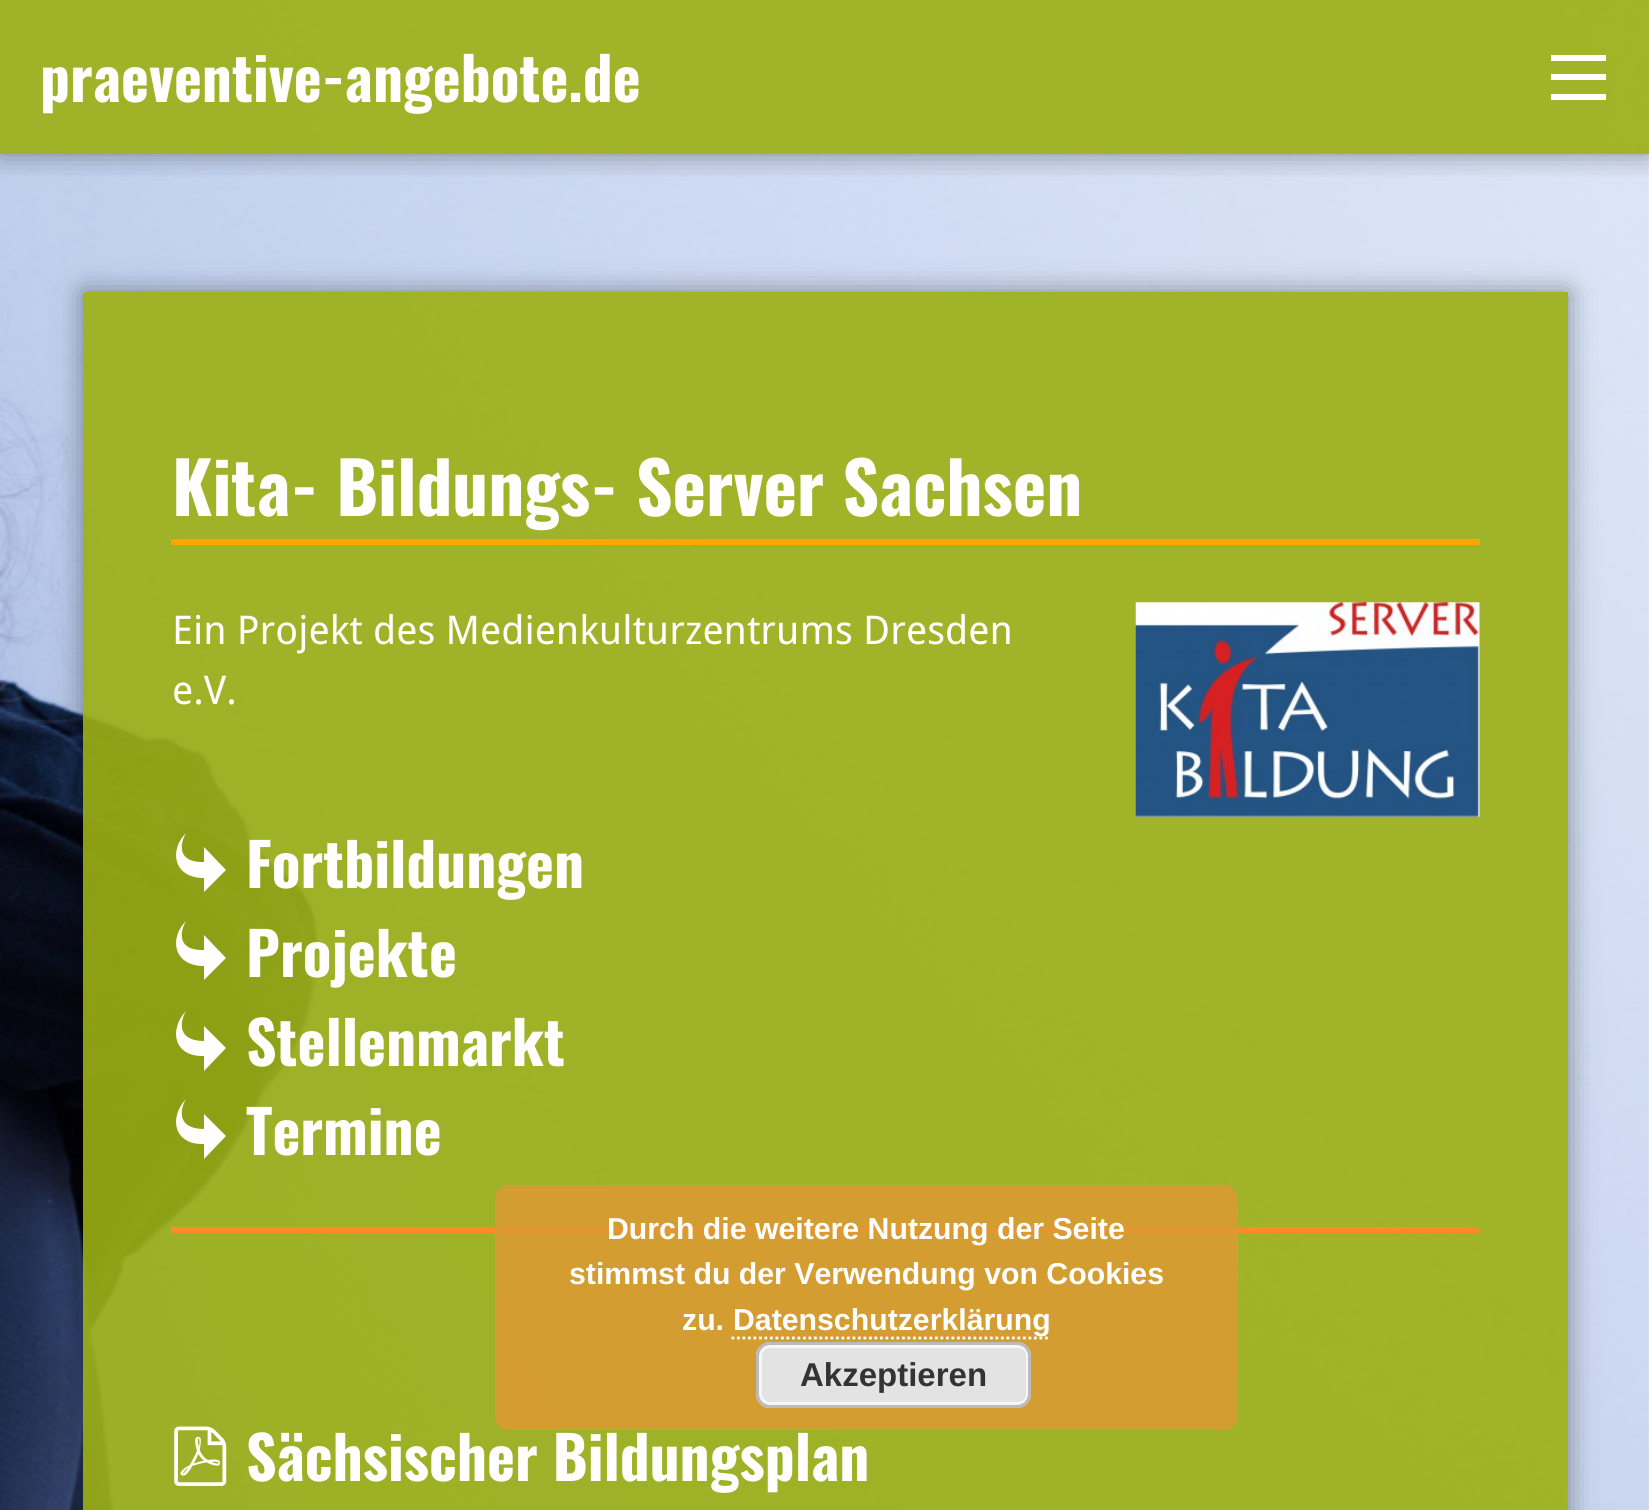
import math
import cairocffi as cairo

surface = cairo.ImageSurface(cairo.FORMAT_RGB24, 1649, 1510)
ctx = cairo.Context(surface)
options = cairo.FontOptions()
options.set_hint_metrics(cairo.HINT_METRICS_OFF)
options.set_hint_style(cairo.HINT_STYLE_NONE)
ctx.set_font_options(options)
ctx.set_miter_limit(4)


def rgb(r, g, b):
    ctx.set_source_rgb(r / 255, g / 255, b / 255)


def face(family, size, italic, bold):
    ctx.select_font_face(family, cairo.FONT_SLANT_ITALIC if italic else cairo.FONT_SLANT_NORMAL, cairo.FONT_WEIGHT_BOLD if bold else cairo.FONT_WEIGHT_NORMAL)
    ctx.set_font_size(size)


def label(x, y, s):
    ctx.move_to(x, y)
    ctx.show_text(s)


def rect(x, y, w, h):
    ctx.rectangle(x, y, w, h)
    ctx.fill()


def rrect(x, y, w, h, r):
    ctx.new_sub_path()
    for i, (u, v) in enumerate([(x + w - r, y + h - r), (x + r, y + h - r), (x + r, y + r), (x + w - r, y + r)]):
        ctx.arc(u, v, r, i * math.pi / 2, (i + 1) * math.pi / 2)
    ctx.close_path()


def soft_shadow(x, y, w, h, r, blur, alpha):
    ctx.push_group_with_content(cairo.CONTENT_ALPHA)
    ctx.set_operator(cairo.OPERATOR_SOURCE)
    for i in range(15, -16, -2):
        e = blur * i / 6
        if min(w, h) + 2 * e > 0:
            ctx.set_source_rgba(0, 0, 0, alpha * math.erfc((i - 1) / 8.5) / 2)
            rrect(x - e, y - e, w + 2 * e, h + 2 * e, max(0, min(r + e + blur * .6, min(w, h) / 2 + e)))
            ctx.fill()
    ctx.mask(ctx.pop_group())


def image(path, x, y, w, h):
    ctx.save()
    ctx.set_source_surface(cairo.ImageSurface.create_from_png(path), x, y)
    ctx.rectangle(x, y, w, h)
    ctx.fill()
    ctx.restore()


rgb(255, 255, 255)
ctx.paint()
image('image0.png', 0, 0, 1649, 1510)
ctx.save()
ctx.rectangle(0, 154, 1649, 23)
ctx.clip()
rgb(0, 0, 0)
soft_shadow(0, 0, 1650, 154, 0, 14, 0.4)
ctx.restore()
ctx.set_source_rgba(0.608, 0.69, 0.078, 0.9)
rect(0, 0, 1649, 154)
face('Oswald', 59.4, 0, 1)
rgb(255, 255, 255)
label(40, 102, 'praeventive-angebote.de')
rect(1551, 74, 55, 6)
rect(1551, 55, 55, 6)
rect(1551, 94, 55, 6)
ctx.save()
ctx.set_fill_rule(cairo.FILL_RULE_EVEN_ODD)
ctx.new_path()
ctx.move_to(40, 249)
ctx.line_to(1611, 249)
ctx.line_to(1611, 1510)
ctx.line_to(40, 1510)
ctx.close_path()
ctx.move_to(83, 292)
ctx.line_to(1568, 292)
ctx.line_to(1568, 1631)
ctx.line_to(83, 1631)
ctx.close_path()
ctx.clip()
rgb(0, 0, 0)
soft_shadow(83, 292, 1485, 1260, 0, 14, 0.4)
ctx.restore()
ctx.set_source_rgba(0.608, 0.69, 0.078, 0.9)
rect(83, 292, 1485, 1218)
rgb(255, 165, 0)
rect(171, 539, 1309, 6)
face('Oswald', 71.25, 0, 1)
rgb(255, 255, 255)
label(172, 516, 'Kita- Bildungs- Server Sachsen')
face('Droid Sans', 39.6, 0, 0)
label(172, 644, 'Ein Projekt des Medienkulturzentrums Dresden')
image('image1.png', 1135, 602, 345, 215)
label(172, 704, 'e.V.')
ctx.new_path()
ctx.move_to(186, 833)
ctx.curve_to(169, 850, 173, 878, 204, 878)
ctx.line_to(204, 892)
ctx.line_to(226, 870)
ctx.line_to(204, 847)
ctx.line_to(204, 862)
ctx.curve_to(178, 863, 179, 845, 186, 833)
ctx.close_path()
ctx.fill()
face('Oswald', 59.4, 0, 1)
label(246, 888, 'Fortbildungen')
ctx.new_path()
ctx.move_to(186, 921)
ctx.curve_to(169, 938, 173, 966, 204, 966)
ctx.line_to(204, 980)
ctx.line_to(226, 958)
ctx.line_to(204, 935)
ctx.line_to(204, 950)
ctx.curve_to(178, 951, 179, 933, 186, 921)
ctx.close_path()
ctx.fill()
label(246, 977, 'Projekte')
ctx.new_path()
ctx.move_to(186, 1011)
ctx.curve_to(169, 1029, 173, 1057, 204, 1056)
ctx.line_to(204, 1071)
ctx.line_to(226, 1048)
ctx.line_to(204, 1026)
ctx.line_to(204, 1041)
ctx.curve_to(178, 1041, 179, 1023, 186, 1011)
ctx.close_path()
ctx.fill()
label(246, 1066, 'Stellenmarkt')
ctx.new_path()
ctx.move_to(186, 1099)
ctx.curve_to(169, 1117, 173, 1145, 204, 1144)
ctx.line_to(204, 1159)
ctx.line_to(226, 1136)
ctx.line_to(204, 1114)
ctx.line_to(204, 1129)
ctx.curve_to(178, 1129, 179, 1111, 186, 1099)
ctx.close_path()
ctx.fill()
label(246, 1155, 'Termine')
rgb(255, 139, 39)
rect(171, 1227, 1309, 6)
image('image2.png', 174, 1426, 53, 60)
rgb(255, 255, 255)
label(246, 1481, 'Sächsischer Bildungsplan')
ctx.set_source_rgba(0.867, 0.6, 0.2, 0.85)
rrect(495, 1185, 743, 245, 14)
ctx.fill()
face('Liberation Sans', 30.25, 0, 1)
rgb(255, 255, 255)
label(607, 1239, 'Durch die weitere Nutzung der Seite')
label(569, 1284, 'stimmst du der Verwendung von Cookies')
label(682, 1330, 'zu.')
ctx.new_path()
ctx.move_to(731.5, 1338)
ctx.line_to(1050.5, 1338)
ctx.set_line_width(2.8)
ctx.set_dash([2.75, 2.75])
ctx.stroke()
label(733, 1330, 'Datenschutzerklärung')
rgb(227, 227, 227)
rrect(756, 1342, 275, 66, 14)
ctx.fill()
rrect(760.5, 1346.5, 267, 57, 9.5)
rgb(246, 246, 246)
ctx.set_line_width(3)
ctx.set_dash([])
ctx.stroke()
rrect(757.5, 1343.5, 272, 63, 12.5)
rgb(187, 187, 187)
ctx.stroke()
face('Liberation Sans', 33, 0, 1)
rgb(51, 51, 51)
label(800, 1386, 'Akzeptieren')
surface.write_to_png('render.png')
